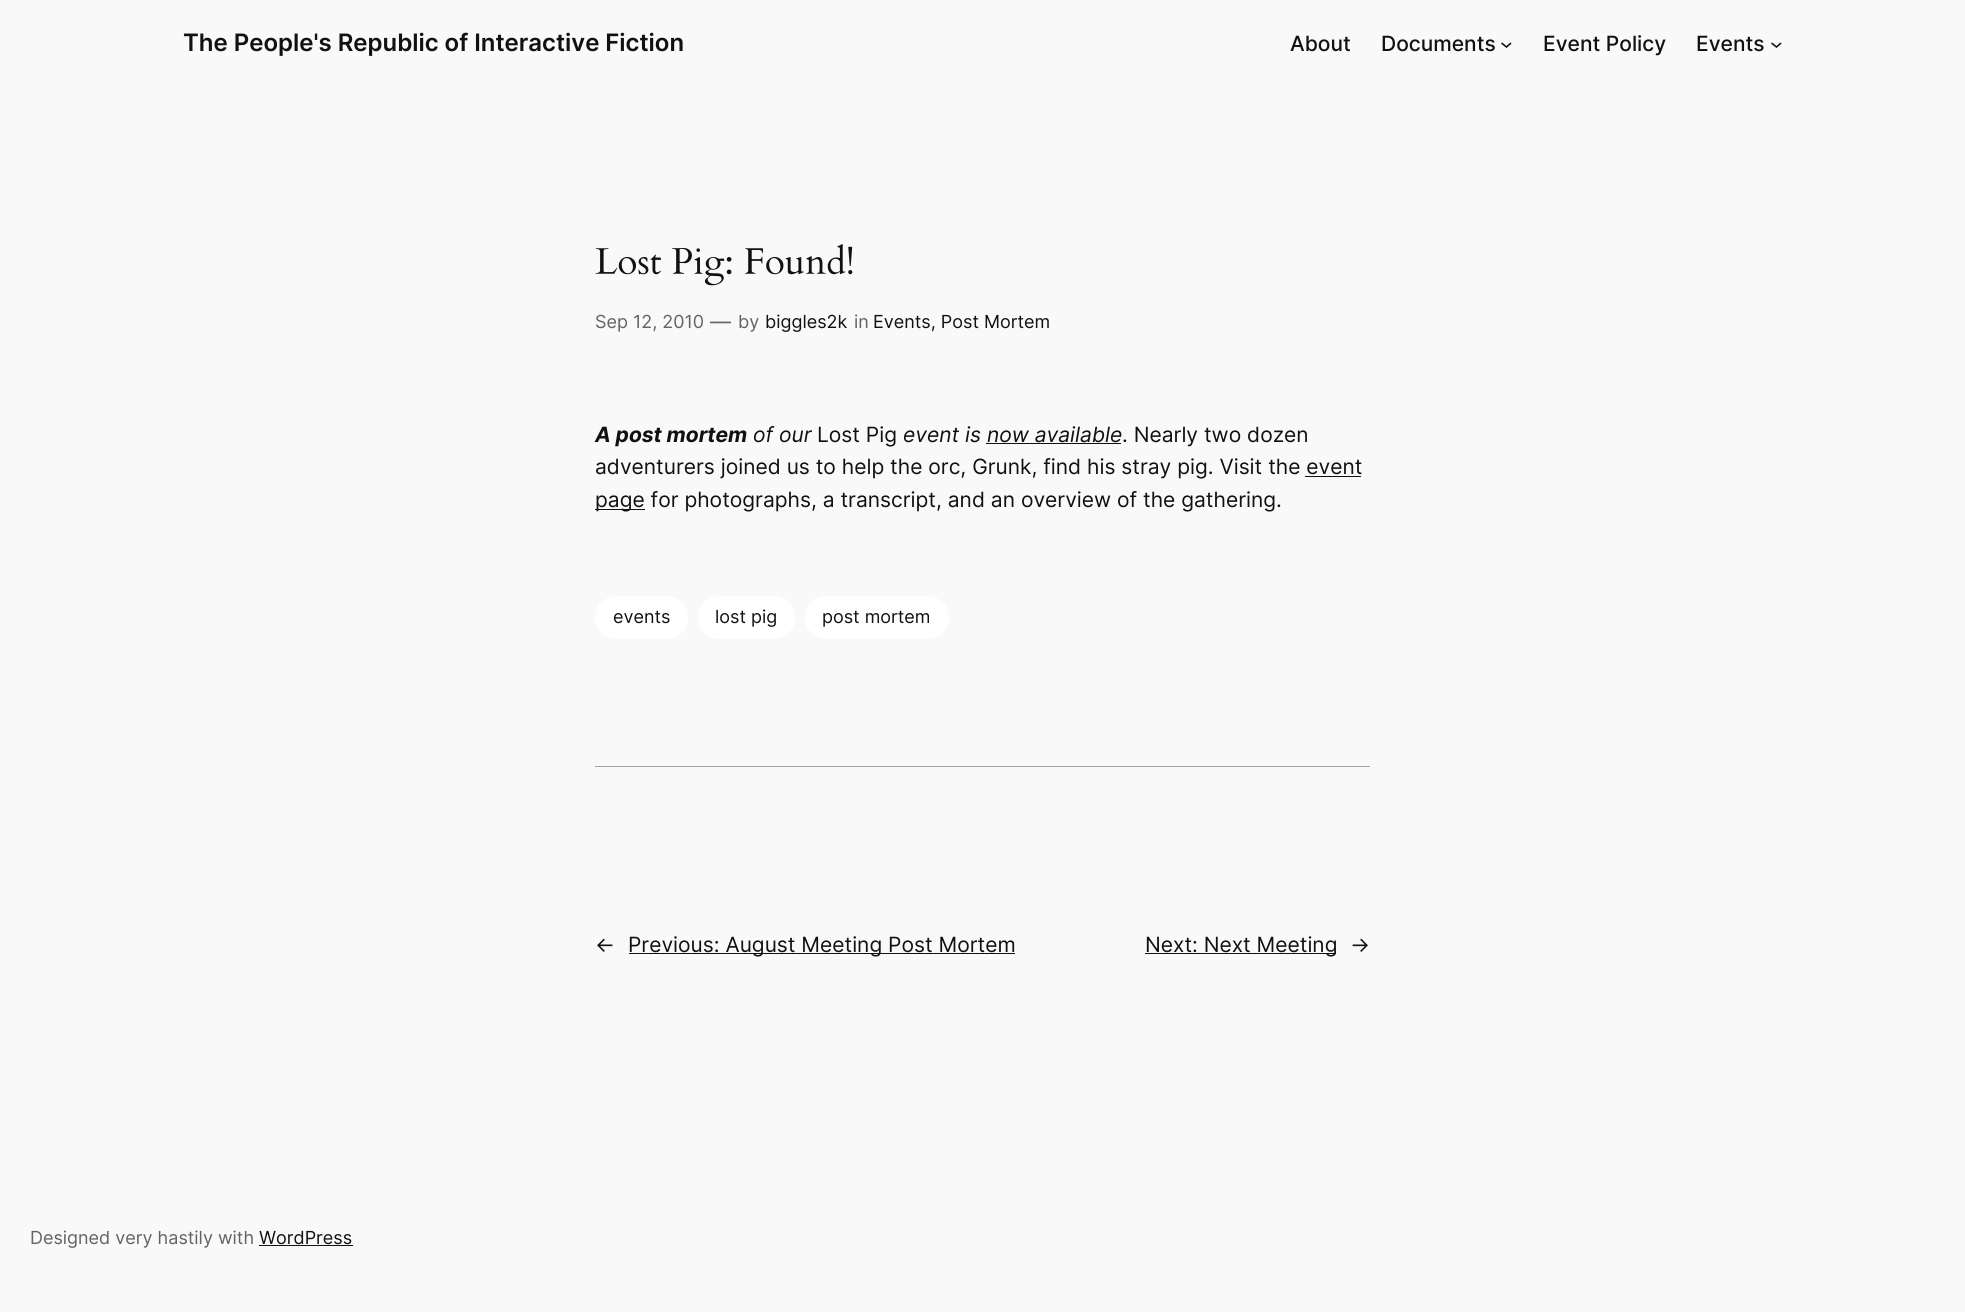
import math
import cairocffi as cairo

surface = cairo.ImageSurface(cairo.FORMAT_RGB24, 1965, 1312)
ctx = cairo.Context(surface)
options = cairo.FontOptions()
options.set_hint_metrics(cairo.HINT_METRICS_OFF)
options.set_hint_style(cairo.HINT_STYLE_NONE)
ctx.set_font_options(options)
ctx.set_miter_limit(4)


def rgb(r, g, b):
    ctx.set_source_rgb(r / 255, g / 255, b / 255)


def face(family, size, italic, bold):
    ctx.select_font_face(family, cairo.FONT_SLANT_ITALIC if italic else cairo.FONT_SLANT_NORMAL, cairo.FONT_WEIGHT_BOLD if bold else cairo.FONT_WEIGHT_NORMAL)
    ctx.set_font_size(size)


def label(x, y, s):
    ctx.move_to(x, y)
    ctx.show_text(s)


def rect(x, y, w, h):
    ctx.rectangle(x, y, w, h)
    ctx.fill()


def rrect(x, y, w, h, r):
    ctx.new_sub_path()
    for i, (u, v) in enumerate([(x + w - r, y + h - r), (x + r, y + h - r), (x + r, y + r), (x + w - r, y + r)]):
        ctx.arc(u, v, r, i * math.pi / 2, (i + 1) * math.pi / 2)
    ctx.close_path()


def image(path, x, y, w, h):
    ctx.save()
    ctx.set_source_surface(cairo.ImageSurface.create_from_png(path), x, y)
    ctx.rectangle(x, y, w, h)
    ctx.fill()
    ctx.restore()


rgb(249, 249, 249)
ctx.paint()
face('Inter SemiBold', 24, 0, 0)
rgb(17, 17, 17)
label(183, 51, 'The People\'s Republic of Interactive Fiction')
face('Inter Medium', 21, 0, 0)
label(1290, 51, 'About')
label(1381, 51, 'Documents')
ctx.new_path()
ctx.move_to(1501.5, 43)
ctx.line_to(1506.5, 47)
ctx.line_to(1511, 43)
ctx.set_line_width(1.6)
ctx.stroke()
label(1543, 51, 'Event Policy')
label(1696, 51, 'Events')
ctx.new_path()
ctx.move_to(1771.5, 43)
ctx.line_to(1776.5, 47)
ctx.line_to(1781, 43)
ctx.stroke()
image('image0.png', 595, 244, 258, 42)
face('Inter', 18, 0, 0)
rgb(99, 99, 99)
label(595, 328, 'Sep 12, 2010')
face('Inter', 21, 0, 0)
label(710, 329, '—')
face('Inter', 18, 0, 0)
label(738, 328, 'by')
rgb(17, 17, 17)
label(765, 328, 'biggles2k')
rgb(99, 99, 99)
label(854, 328, 'in')
rgb(17, 17, 17)
label(873, 328, 'Events, Post Mortem')
face('Inter', 21, 1, 1)
label(595, 442, 'A post mortem')
face('Inter', 21, 1, 0)
label(753, 442, 'of our')
face('Inter', 21, 0, 0)
label(817, 442, 'Lost Pig')
face('Inter', 21, 1, 0)
label(903, 442, 'event is now available')
rect(986, 443, 135, 1)
face('Inter', 21, 0, 0)
label(1122, 442, '. Nearly two dozen')
label(595, 474, 'adventurers joined us to help the orc, Grunk, find his stray pig. Visit the event')
rect(595, 509, 50, 1)
label(595, 507, 'page for photographs, a transcript, and an overview of the gathering.')
rect(1305, 476, 56, 1)
rgb(255, 255, 255)
rrect(595, 596, 93, 43, 21.5)
ctx.fill()
face('Inter', 18, 0, 0)
rgb(17, 17, 17)
label(613, 623, 'events')
rgb(255, 255, 255)
rrect(698, 596, 97, 43, 21.5)
ctx.fill()
rgb(17, 17, 17)
label(715, 623, 'lost pig')
rgb(255, 255, 255)
rrect(805, 596, 144, 43, 21.5)
ctx.fill()
rgb(17, 17, 17)
label(822, 623, 'post mortem')
rgb(164, 164, 164)
rect(595, 766, 775, 1)
face('Inter', 21, 0, 0)
rgb(17, 17, 17)
label(595, 952, '←')
rect(629, 953, 386, 1)
label(628, 952, 'Previous: August Meeting Post Mortem')
rect(1145, 953, 191, 1)
label(1145, 952, 'Next: Next Meeting')
label(1350, 952, '→')
face('Inter', 18, 0, 0)
rgb(99, 99, 99)
label(30, 1244, 'Designed very hastily with')
rgb(17, 17, 17)
label(259, 1244, 'WordPress')
rect(259, 1245, 94, 1)
surface.write_to_png('render.png')
